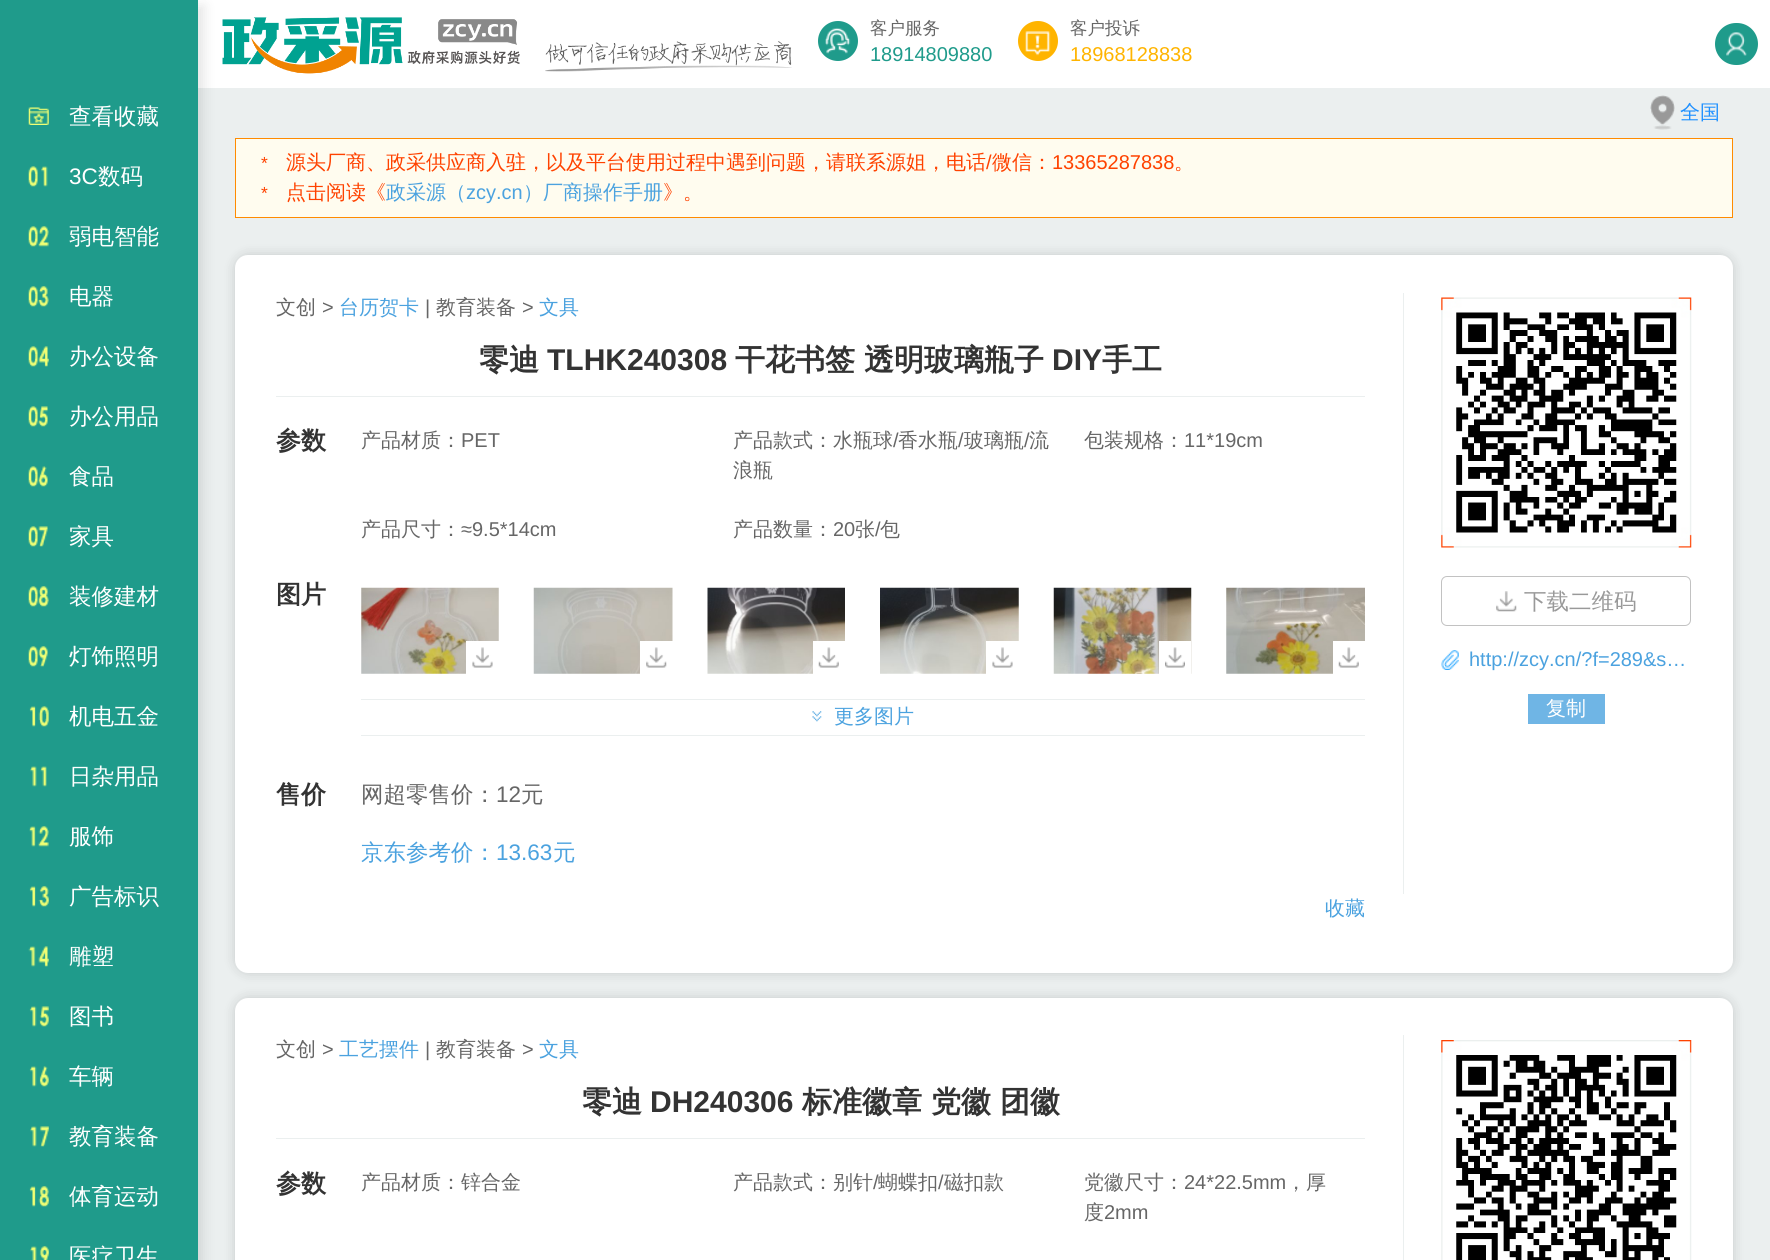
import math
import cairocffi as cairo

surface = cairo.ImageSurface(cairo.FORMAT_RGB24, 1770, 1260)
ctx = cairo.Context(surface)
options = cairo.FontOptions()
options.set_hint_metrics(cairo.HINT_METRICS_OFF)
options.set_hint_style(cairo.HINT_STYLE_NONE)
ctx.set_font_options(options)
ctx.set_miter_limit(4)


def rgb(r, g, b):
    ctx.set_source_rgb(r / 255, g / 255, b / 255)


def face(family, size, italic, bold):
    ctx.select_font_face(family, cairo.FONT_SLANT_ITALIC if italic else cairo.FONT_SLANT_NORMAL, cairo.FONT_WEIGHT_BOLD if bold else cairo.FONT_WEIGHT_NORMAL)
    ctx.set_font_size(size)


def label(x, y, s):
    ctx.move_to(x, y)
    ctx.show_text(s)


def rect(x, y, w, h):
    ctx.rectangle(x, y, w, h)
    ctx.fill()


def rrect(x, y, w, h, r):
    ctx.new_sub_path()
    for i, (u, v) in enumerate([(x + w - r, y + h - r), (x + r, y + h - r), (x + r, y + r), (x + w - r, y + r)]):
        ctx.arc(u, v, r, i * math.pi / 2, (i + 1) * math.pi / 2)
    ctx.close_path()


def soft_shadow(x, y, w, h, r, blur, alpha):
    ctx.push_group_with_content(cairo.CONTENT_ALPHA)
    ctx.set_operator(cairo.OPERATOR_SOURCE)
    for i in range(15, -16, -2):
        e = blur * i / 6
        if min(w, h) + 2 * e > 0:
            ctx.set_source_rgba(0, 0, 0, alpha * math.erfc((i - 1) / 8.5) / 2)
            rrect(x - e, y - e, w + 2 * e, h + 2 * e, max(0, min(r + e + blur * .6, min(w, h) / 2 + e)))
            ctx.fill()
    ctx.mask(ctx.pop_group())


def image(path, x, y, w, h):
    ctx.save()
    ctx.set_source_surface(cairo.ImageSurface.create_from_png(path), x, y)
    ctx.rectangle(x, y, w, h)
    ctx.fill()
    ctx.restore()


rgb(235, 239, 239)
ctx.paint()
rgb(255, 255, 255)
rect(198, 0, 1572, 88)
image('image20.png', 222, 17, 298, 57)
rgb(4, 0, 0)
soft_shadow(6, 6, 198, 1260, 0, 6, 0.1)
rgb(31, 155, 139)
rect(0, 0, 198, 1260)
image('image0.png', 28, 107, 21, 18)
face('WenQuanYi Zen Hei Medium', 22.5, 0, 0)
rgb(255, 255, 255)
label(69, 124, '查看收藏')
image('image1.png', 28, 166, 20, 21)
face('Liberation Sans', 22.5, 0, 0)
label(69, 184, '3C')
face('WenQuanYi Zen Hei Medium', 22.5, 0, 0)
label(98, 184, '数码')
image('image2.png', 28, 226, 21, 21)
label(69, 244, '弱电智能')
image('image3.png', 28, 286, 21, 21)
label(69, 304, '电器')
image('image4.png', 28, 346, 21, 21)
label(69, 364, '办公设备')
image('image5.png', 28, 406, 20, 21)
label(69, 424, '办公用品')
image('image6.png', 28, 466, 20, 21)
label(69, 484, '食品')
image('image7.png', 28, 526, 20, 21)
label(69, 544, '家具')
image('image8.png', 28, 586, 21, 21)
label(69, 604, '装修建材')
image('image9.png', 28, 646, 20, 21)
label(69, 664, '灯饰照明')
image('image10.png', 29, 706, 20, 21)
label(69, 724, '机电五金')
image('image11.png', 30, 766, 17, 21)
label(69, 784, '日杂用品')
image('image12.png', 29, 826, 20, 21)
label(69, 844, '服饰')
image('image13.png', 29, 886, 20, 21)
label(69, 904, '广告标识')
image('image14.png', 28, 946, 21, 21)
label(69, 964, '雕塑')
image('image15.png', 29, 1006, 20, 21)
label(69, 1024, '图书')
image('image16.png', 29, 1066, 20, 21)
label(69, 1084, '车辆')
image('image17.png', 30, 1126, 19, 21)
label(69, 1144, '教育装备')
image('image18.png', 29, 1186, 20, 21)
label(69, 1204, '体育运动')
image('image19.png', 30, 1246, 19, 14)
label(69, 1264, '医疗卫生')
image('image21.png', 545, 41, 247, 31)
rgb(31, 155, 139)
ctx.arc(838, 41, 20, 0, 2 * math.pi)
ctx.fill()
image('image22.png', 825, 27, 26, 27)
face('WenQuanYi Zen Hei Medium', 17.5, 0, 0)
rgb(102, 102, 102)
label(870, 34, '客户服务')
face('Liberation Sans', 20, 0, 0)
rgb(31, 155, 139)
label(870, 61, '18914809880')
rgb(255, 180, 0)
ctx.new_path()
ctx.arc(1038, 41, 20, 0, 2 * math.pi)
ctx.fill()
image('image23.png', 1025, 31, 26, 25)
face('WenQuanYi Zen Hei Medium', 17.5, 0, 0)
rgb(102, 102, 102)
label(1070, 34, '客户投诉')
face('Liberation Sans', 20, 0, 0)
rgb(255, 180, 0)
label(1070, 61, '18968128838')
rgb(31, 155, 139)
rrect(1715, 23, 43, 42, 21)
ctx.fill()
image('image24.png', 1726, 32, 21, 24)
image('image25.png', 1650, 95, 25, 35)
face('WenQuanYi Zen Hei Medium', 20, 0, 0)
rgb(30, 144, 255)
label(1680, 119, '全国')
rgb(255, 252, 239)
ctx.rectangle(235.5, 138.5, 1497, 79)
ctx.fill_preserve()
rgb(255, 139, 0)
ctx.set_line_width(1)
ctx.stroke()
face('Liberation Sans', 17.5, 0, 0)
rgb(255, 66, 0)
label(261, 169, '*')
face('WenQuanYi Zen Hei Medium', 20, 0, 0)
label(286, 169, '源头厂商、政采供应商入驻，以及平台使用过程中遇到问题，请联系源姐，电话')
face('Liberation Sans', 20, 0, 0)
label(986, 169, '/')
face('WenQuanYi Zen Hei Medium', 20, 0, 0)
label(992, 169, '微信：')
face('Liberation Sans', 20, 0, 0)
label(1052, 169, '13365287838')
face('WenQuanYi Zen Hei Medium', 20, 0, 0)
label(1174, 169, '。')
face('Liberation Sans', 17.5, 0, 0)
label(261, 199, '*')
face('WenQuanYi Zen Hei Medium', 20, 0, 0)
label(286, 199, '点击阅读《')
rgb(75, 162, 223)
label(386, 199, '政采源（')
face('Liberation Sans', 20, 0, 0)
label(466, 199, 'zcy.cn')
face('WenQuanYi Zen Hei Medium', 20, 0, 0)
label(523, 199, '）厂商操作手册')
rgb(255, 66, 0)
label(663, 199, '》。')
rgb(4, 0, 0)
soft_shadow(235, 255, 1498, 718, 13, 6, 0.15)
rgb(255, 255, 255)
rrect(235, 255, 1498, 718, 13)
ctx.fill()
rgb(235, 239, 239)
rect(1403, 293, 1, 601)
rgb(102, 102, 102)
label(276, 314, '文创')
face('Liberation Sans', 20, 0, 0)
label(322, 314, '>')
face('WenQuanYi Zen Hei Medium', 20, 0, 0)
rgb(75, 162, 223)
label(339, 314, '台历贺卡')
face('Liberation Sans', 20, 0, 0)
rgb(102, 102, 102)
label(425, 314, '|')
face('WenQuanYi Zen Hei Medium', 20, 0, 0)
label(436, 314, '教育装备')
face('Liberation Sans', 20, 0, 0)
label(522, 314, '>')
face('WenQuanYi Zen Hei Medium', 20, 0, 0)
rgb(75, 162, 223)
label(539, 314, '文具')
rgb(235, 239, 239)
rect(276, 396, 1089, 1)
face('WenQuanYi Zen Hei', 30, 0, 1)
rgb(51, 51, 51)
label(479, 370, '零迪')
face('Liberation Sans', 30, 0, 1)
label(547, 370, 'TLHK240308')
face('WenQuanYi Zen Hei', 30, 0, 1)
label(735, 370, '干花书签 透明玻璃瓶子')
face('Liberation Sans', 30, 0, 1)
label(1052, 370, 'DIY')
face('WenQuanYi Zen Hei', 30, 0, 1)
label(1102, 370, '手工')
face('WenQuanYi Zen Hei', 25, 0, 1)
label(276, 449, '参数')
face('WenQuanYi Zen Hei Medium', 20, 0, 0)
rgb(102, 102, 102)
label(361, 447, '产品材质：')
face('Liberation Sans', 20, 0, 0)
label(461, 447, 'PET')
face('WenQuanYi Zen Hei Medium', 20, 0, 0)
label(733, 447, '产品款式：水瓶球')
face('Liberation Sans', 20, 0, 0)
label(893, 447, '/')
face('WenQuanYi Zen Hei Medium', 20, 0, 0)
label(898, 447, '香水瓶')
face('Liberation Sans', 20, 0, 0)
label(958, 447, '/')
face('WenQuanYi Zen Hei Medium', 20, 0, 0)
label(964, 447, '玻璃瓶')
face('Liberation Sans', 20, 0, 0)
label(1024, 447, '/')
face('WenQuanYi Zen Hei Medium', 20, 0, 0)
label(1029, 447, '流')
label(733, 477, '浪瓶')
label(1084, 447, '包装规格：')
face('Liberation Sans', 20, 0, 0)
label(1184, 447, '11*19cm')
face('WenQuanYi Zen Hei Medium', 20, 0, 0)
label(361, 536, '产品尺寸：')
face('Liberation Sans', 20, 0, 0)
label(461, 536, '≈9.5*14cm')
face('WenQuanYi Zen Hei Medium', 20, 0, 0)
label(733, 536, '产品数量：')
face('Liberation Sans', 20, 0, 0)
label(833, 536, '20')
face('WenQuanYi Zen Hei Medium', 20, 0, 0)
label(855, 536, '张')
face('Liberation Sans', 20, 0, 0)
label(875, 536, '/')
face('WenQuanYi Zen Hei Medium', 20, 0, 0)
label(880, 536, '包')
face('WenQuanYi Zen Hei', 25, 0, 1)
rgb(51, 51, 51)
label(276, 603, '图片')
image('image26.png', 361, 587, 138, 87)
rgb(255, 255, 255)
rect(466, 641, 33, 33)
image('image27.png', 472, 647, 21, 21)
image('image28.png', 533, 587, 140, 87)
rect(640, 641, 33, 33)
image('image29.png', 646, 647, 21, 21)
image('image30.png', 707, 587, 138, 87)
rect(813, 641, 32, 33)
image('image31.png', 818, 647, 21, 21)
image('image32.png', 880, 587, 139, 87)
rect(986, 641, 33, 33)
image('image33.png', 992, 647, 21, 21)
image('image34.png', 1053, 587, 139, 87)
rect(1159, 641, 32, 33)
image('image35.png', 1165, 647, 20, 21)
image('image36.png', 1226, 587, 139, 87)
rect(1333, 641, 32, 33)
image('image37.png', 1338, 647, 21, 21)
rgb(235, 239, 239)
rect(361, 699, 1004, 1)
rect(361, 735, 1004, 1)
image('image38.png', 812, 711, 10, 11)
face('WenQuanYi Zen Hei Medium', 20, 0, 0)
rgb(75, 162, 223)
label(834, 723, '更多图片')
face('WenQuanYi Zen Hei', 25, 0, 1)
rgb(51, 51, 51)
label(276, 803, '售价')
face('WenQuanYi Zen Hei Medium', 22.5, 0, 0)
rgb(102, 102, 102)
label(361, 802, '网超零售价：')
face('Liberation Sans', 22.5, 0, 0)
label(496, 802, '12')
face('WenQuanYi Zen Hei Medium', 22.5, 0, 0)
label(521, 802, '元')
rgb(75, 162, 223)
label(361, 860, '京东参考价：')
face('Liberation Sans', 22.5, 0, 0)
label(496, 860, '13.63')
face('WenQuanYi Zen Hei Medium', 22.5, 0, 0)
label(553, 860, '元')
face('WenQuanYi Zen Hei Medium', 20, 0, 0)
label(1325, 915, '收藏')
image('image39.png', 1441, 297, 251, 251)
image('image40.png', 1456, 312, 221, 221)
rrect(1441.5, 576.5, 249, 49, 5.5)
rgb(194, 194, 194)
ctx.stroke()
image('image41.png', 1496, 591, 21, 21)
face('WenQuanYi Zen Hei Medium', 22.5, 0, 0)
rgb(153, 153, 153)
label(1524, 609, '下载二维码')
image('image42.png', 1441, 650, 18, 20)
face('Liberation Sans', 20, 0, 0)
rgb(75, 162, 223)
label(1469, 666, 'http://zcy.cn/?f=289&s…')
rgb(111, 181, 229)
rect(1528, 694, 77, 30)
face('WenQuanYi Zen Hei Medium', 20, 0, 0)
rgb(255, 255, 255)
label(1546, 715, '复制')
rgb(4, 0, 0)
soft_shadow(235, 998, 1498, 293, 13, 6, 0.15)
rgb(255, 255, 255)
ctx.new_path()
ctx.move_to(248, 998)
ctx.line_to(1720, 998)
ctx.curve_to(1727, 998, 1733, 1004, 1733, 1011)
ctx.line_to(1733, 1260)
ctx.line_to(235, 1260)
ctx.line_to(235, 1011)
ctx.curve_to(235, 1004, 241, 998, 248, 998)
ctx.close_path()
ctx.fill()
rgb(235, 239, 239)
rect(1403, 1035, 1, 225)
rgb(102, 102, 102)
label(276, 1056, '文创')
face('Liberation Sans', 20, 0, 0)
label(322, 1056, '>')
face('WenQuanYi Zen Hei Medium', 20, 0, 0)
rgb(75, 162, 223)
label(339, 1056, '工艺摆件')
face('Liberation Sans', 20, 0, 0)
rgb(102, 102, 102)
label(425, 1056, '|')
face('WenQuanYi Zen Hei Medium', 20, 0, 0)
label(436, 1056, '教育装备')
face('Liberation Sans', 20, 0, 0)
label(522, 1056, '>')
face('WenQuanYi Zen Hei Medium', 20, 0, 0)
rgb(75, 162, 223)
label(539, 1056, '文具')
rgb(235, 239, 239)
rect(276, 1138, 1089, 1)
face('WenQuanYi Zen Hei', 30, 0, 1)
rgb(51, 51, 51)
label(582, 1112, '零迪')
face('Liberation Sans', 30, 0, 1)
label(650, 1112, 'DH240306')
face('WenQuanYi Zen Hei', 30, 0, 1)
label(802, 1112, '标准徽章 党徽 团徽')
face('WenQuanYi Zen Hei', 25, 0, 1)
label(276, 1192, '参数')
face('WenQuanYi Zen Hei Medium', 20, 0, 0)
rgb(102, 102, 102)
label(361, 1189, '产品材质：锌合金')
label(733, 1189, '产品款式：别针')
face('Liberation Sans', 20, 0, 0)
label(873, 1189, '/')
face('WenQuanYi Zen Hei Medium', 20, 0, 0)
label(878, 1189, '蝴蝶扣')
face('Liberation Sans', 20, 0, 0)
label(938, 1189, '/')
face('WenQuanYi Zen Hei Medium', 20, 0, 0)
label(944, 1189, '磁扣款')
label(1084, 1189, '党徽尺寸：')
face('Liberation Sans', 20, 0, 0)
label(1184, 1189, '24*22.5mm')
face('WenQuanYi Zen Hei Medium', 20, 0, 0)
label(1286, 1189, '，厚')
label(1084, 1219, '度')
face('Liberation Sans', 20, 0, 0)
label(1104, 1219, '2mm')
image('image43.png', 1441, 1040, 251, 220)
image('image44.png', 1456, 1055, 221, 205)
surface.write_to_png('render.png')
